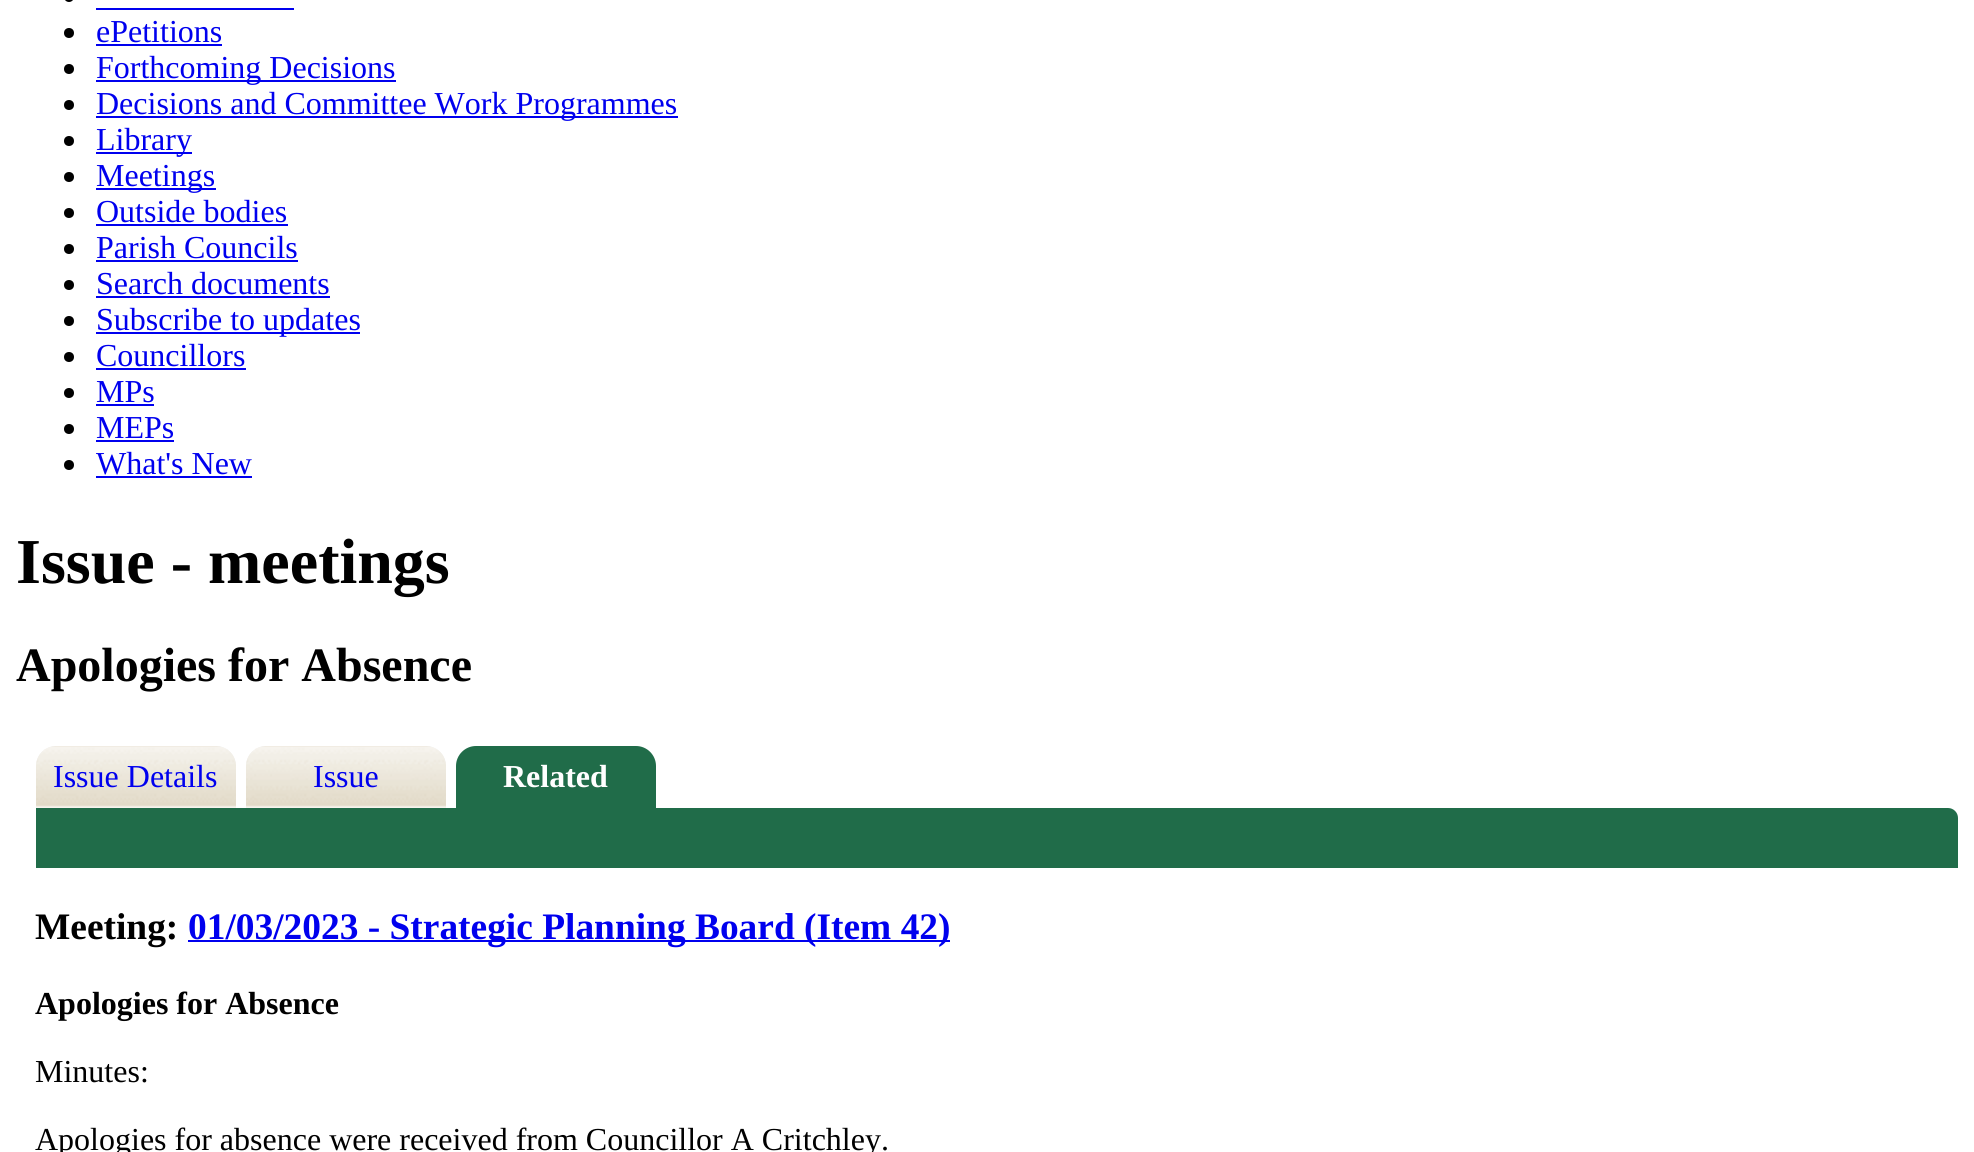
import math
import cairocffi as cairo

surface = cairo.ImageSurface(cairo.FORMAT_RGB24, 1974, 1152)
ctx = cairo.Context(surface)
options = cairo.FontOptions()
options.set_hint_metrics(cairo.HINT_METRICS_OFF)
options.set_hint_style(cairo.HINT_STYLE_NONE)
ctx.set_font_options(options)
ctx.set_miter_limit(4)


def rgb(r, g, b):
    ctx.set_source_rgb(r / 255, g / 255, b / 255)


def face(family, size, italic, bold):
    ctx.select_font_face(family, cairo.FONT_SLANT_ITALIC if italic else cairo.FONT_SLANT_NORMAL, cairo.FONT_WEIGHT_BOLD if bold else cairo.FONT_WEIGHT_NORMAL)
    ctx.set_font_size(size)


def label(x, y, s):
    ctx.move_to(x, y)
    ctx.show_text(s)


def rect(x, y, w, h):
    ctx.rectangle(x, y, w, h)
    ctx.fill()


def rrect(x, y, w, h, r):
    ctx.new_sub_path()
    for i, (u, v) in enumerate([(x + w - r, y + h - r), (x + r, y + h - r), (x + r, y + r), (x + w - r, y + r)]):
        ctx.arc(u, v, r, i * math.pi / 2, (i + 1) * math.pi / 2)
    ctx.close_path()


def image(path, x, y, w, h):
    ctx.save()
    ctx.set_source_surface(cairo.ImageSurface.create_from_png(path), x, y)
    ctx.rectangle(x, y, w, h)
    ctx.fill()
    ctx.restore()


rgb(255, 255, 255)
ctx.paint()
rgb(0, 0, 0)
rrect(64, -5, 10, 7, 5)
ctx.fill()
rgb(0, 0, 238)
rect(96, 8, 198, 2)
rgb(0, 0, 0)
ctx.arc(69, 33, 5, 0, 2 * math.pi)
ctx.fill()
face('Liberation Serif', 32, 0, 0)
rgb(0, 0, 238)
label(96, 42, 'ePetitions')
rect(96, 44, 126, 2)
rgb(0, 0, 0)
ctx.new_path()
ctx.arc(69, 69, 5, 0, 2 * math.pi)
ctx.fill()
rgb(0, 0, 238)
rect(96, 80, 300, 2)
label(96, 78, 'Forthcoming Decisions')
rgb(0, 0, 0)
ctx.new_path()
ctx.arc(69, 105, 5, 0, 2 * math.pi)
ctx.fill()
rgb(0, 0, 238)
rect(96, 116, 582, 2)
label(96, 114, 'Decisions and Committee Work Programmes')
rgb(0, 0, 0)
ctx.new_path()
ctx.arc(69, 141, 5, 0, 2 * math.pi)
ctx.fill()
rgb(0, 0, 238)
rect(96, 152, 96, 2)
label(96, 150, 'Library')
rgb(0, 0, 0)
ctx.new_path()
ctx.arc(69, 177, 5, 0, 2 * math.pi)
ctx.fill()
rgb(0, 0, 238)
rect(96, 188, 120, 2)
label(96, 186, 'Meetings')
rgb(0, 0, 0)
ctx.new_path()
ctx.arc(69, 213, 5, 0, 2 * math.pi)
ctx.fill()
rgb(0, 0, 238)
label(96, 222, 'Outside bodies')
rect(96, 224, 192, 2)
rgb(0, 0, 0)
ctx.new_path()
ctx.arc(69, 249, 5, 0, 2 * math.pi)
ctx.fill()
rgb(0, 0, 238)
label(96, 258, 'Parish Councils')
rect(96, 260, 202, 2)
rgb(0, 0, 0)
ctx.new_path()
ctx.arc(69, 285, 5, 0, 2 * math.pi)
ctx.fill()
rgb(0, 0, 238)
label(96, 294, 'Search documents')
rect(96, 296, 234, 2)
rgb(0, 0, 0)
ctx.new_path()
ctx.arc(69, 321, 5, 0, 2 * math.pi)
ctx.fill()
rgb(0, 0, 238)
rect(96, 332, 264, 2)
label(96, 330, 'Subscribe to updates')
rgb(0, 0, 0)
ctx.new_path()
ctx.arc(69, 357, 5, 0, 2 * math.pi)
ctx.fill()
rgb(0, 0, 238)
label(96, 366, 'Councillors')
rect(96, 368, 150, 2)
rgb(0, 0, 0)
ctx.new_path()
ctx.arc(69, 393, 5, 0, 2 * math.pi)
ctx.fill()
rgb(0, 0, 238)
label(96, 402, 'MPs')
rect(96, 404, 58, 2)
rgb(0, 0, 0)
ctx.new_path()
ctx.arc(69, 429, 5, 0, 2 * math.pi)
ctx.fill()
rgb(0, 0, 238)
label(96, 438, 'MEPs')
rect(96, 440, 78, 2)
rgb(0, 0, 0)
ctx.new_path()
ctx.arc(69, 465, 5, 0, 2 * math.pi)
ctx.fill()
rgb(0, 0, 238)
label(96, 474, 'What\'s New')
rect(96, 476, 156, 2)
face('Liberation Serif', 64, 0, 1)
rgb(0, 0, 0)
label(16, 583, 'Issue - meetings')
face('Liberation Serif', 48, 0, 1)
label(16, 681, 'Apologies for Absence')
rgb(243, 243, 243)
ctx.new_path()
ctx.move_to(56, 746)
ctx.line_to(216, 746)
ctx.curve_to(227, 746, 236, 755, 236, 766)
ctx.line_to(236, 808)
ctx.line_to(36, 808)
ctx.line_to(36, 766)
ctx.curve_to(36, 755, 45, 746, 56, 746)
ctx.close_path()
ctx.fill()
image('image0.png', 36, 746, 200, 62)
face('Liberation Serif', 32, 0, 0)
rgb(0, 0, 238)
label(53, 787, 'Issue Details')
rgb(243, 243, 243)
ctx.new_path()
ctx.move_to(266, 746)
ctx.line_to(426, 746)
ctx.curve_to(437, 746, 446, 755, 446, 766)
ctx.line_to(446, 808)
ctx.line_to(246, 808)
ctx.line_to(246, 766)
ctx.curve_to(246, 755, 255, 746, 266, 746)
ctx.close_path()
ctx.fill()
image('image1.png', 246, 746, 200, 62)
rgb(0, 0, 238)
label(313, 787, 'Issue')
rgb(32, 108, 73)
ctx.new_path()
ctx.move_to(476, 746)
ctx.line_to(636, 746)
ctx.curve_to(647, 746, 656, 755, 656, 766)
ctx.line_to(656, 808)
ctx.line_to(456, 808)
ctx.line_to(456, 766)
ctx.curve_to(456, 755, 465, 746, 476, 746)
ctx.close_path()
ctx.fill()
face('Liberation Serif', 32, 0, 1)
rgb(255, 255, 255)
label(503, 787, 'Related')
rgb(32, 108, 73)
ctx.new_path()
ctx.move_to(36, 808)
ctx.line_to(1948, 808)
ctx.curve_to(1953.5, 808, 1958, 812.5, 1958, 818)
ctx.line_to(1958, 868)
ctx.line_to(36, 868)
ctx.close_path()
ctx.fill()
face('Liberation Serif', 37.4, 0, 1)
rgb(0, 0, 0)
label(35, 939, 'Meeting:')
rgb(0, 0, 238)
rect(188, 940, 762, 2)
label(188, 939, '01/03/2023 - Strategic Planning Board (Item 42)')
face('Liberation Serif', 32, 0, 1)
rgb(0, 0, 0)
label(35, 1014, 'Apologies for Absence')
face('Liberation Serif', 32, 0, 0)
label(35, 1082, 'Minutes:')
label(35, 1150, 'Apologies for absence were received from Councillor A Critchley.')
surface.write_to_png('render.png')
